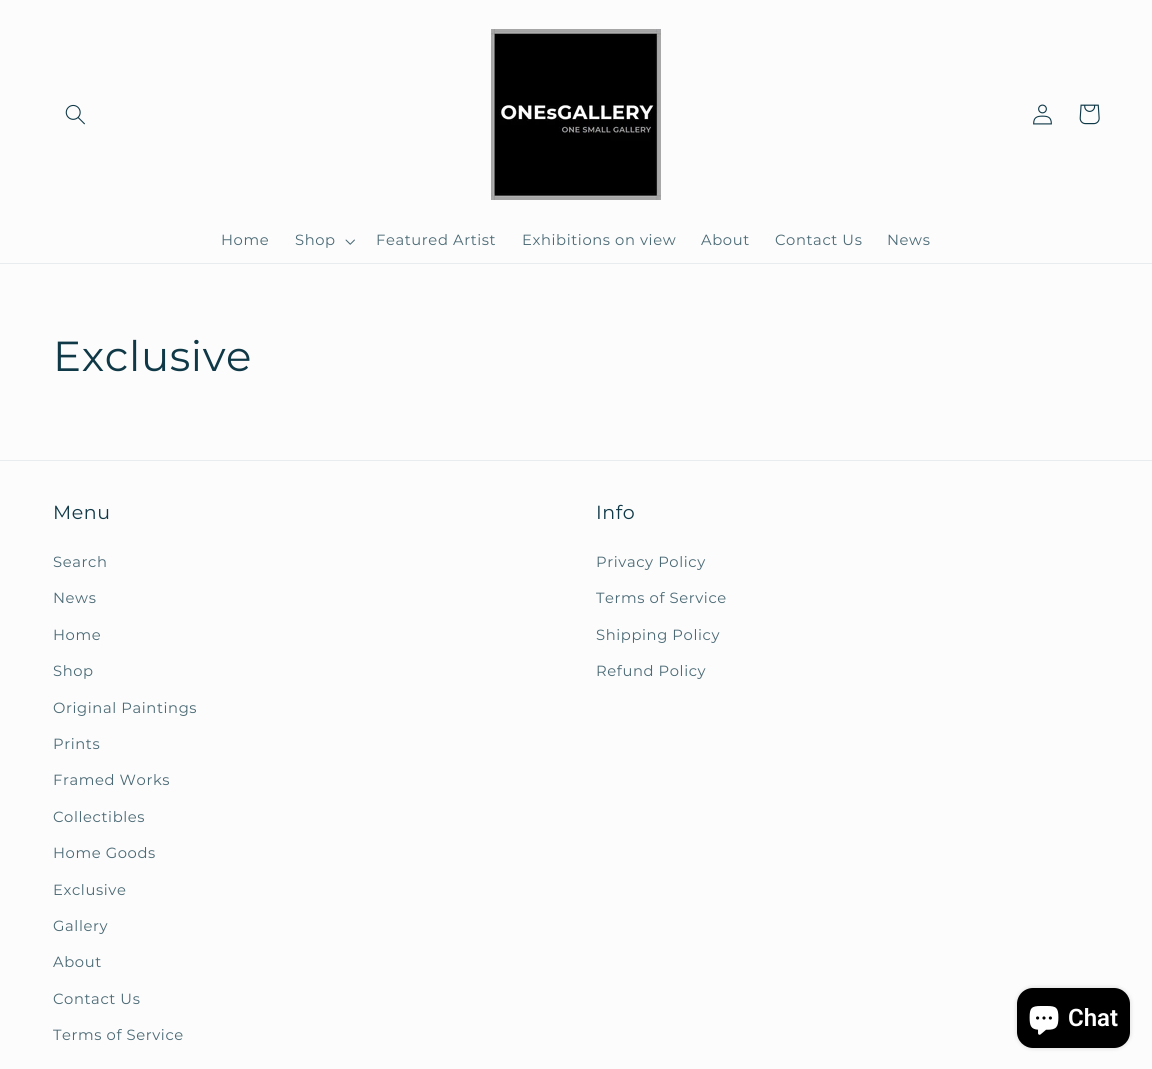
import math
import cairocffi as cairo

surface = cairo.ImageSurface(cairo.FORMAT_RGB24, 1152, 1069)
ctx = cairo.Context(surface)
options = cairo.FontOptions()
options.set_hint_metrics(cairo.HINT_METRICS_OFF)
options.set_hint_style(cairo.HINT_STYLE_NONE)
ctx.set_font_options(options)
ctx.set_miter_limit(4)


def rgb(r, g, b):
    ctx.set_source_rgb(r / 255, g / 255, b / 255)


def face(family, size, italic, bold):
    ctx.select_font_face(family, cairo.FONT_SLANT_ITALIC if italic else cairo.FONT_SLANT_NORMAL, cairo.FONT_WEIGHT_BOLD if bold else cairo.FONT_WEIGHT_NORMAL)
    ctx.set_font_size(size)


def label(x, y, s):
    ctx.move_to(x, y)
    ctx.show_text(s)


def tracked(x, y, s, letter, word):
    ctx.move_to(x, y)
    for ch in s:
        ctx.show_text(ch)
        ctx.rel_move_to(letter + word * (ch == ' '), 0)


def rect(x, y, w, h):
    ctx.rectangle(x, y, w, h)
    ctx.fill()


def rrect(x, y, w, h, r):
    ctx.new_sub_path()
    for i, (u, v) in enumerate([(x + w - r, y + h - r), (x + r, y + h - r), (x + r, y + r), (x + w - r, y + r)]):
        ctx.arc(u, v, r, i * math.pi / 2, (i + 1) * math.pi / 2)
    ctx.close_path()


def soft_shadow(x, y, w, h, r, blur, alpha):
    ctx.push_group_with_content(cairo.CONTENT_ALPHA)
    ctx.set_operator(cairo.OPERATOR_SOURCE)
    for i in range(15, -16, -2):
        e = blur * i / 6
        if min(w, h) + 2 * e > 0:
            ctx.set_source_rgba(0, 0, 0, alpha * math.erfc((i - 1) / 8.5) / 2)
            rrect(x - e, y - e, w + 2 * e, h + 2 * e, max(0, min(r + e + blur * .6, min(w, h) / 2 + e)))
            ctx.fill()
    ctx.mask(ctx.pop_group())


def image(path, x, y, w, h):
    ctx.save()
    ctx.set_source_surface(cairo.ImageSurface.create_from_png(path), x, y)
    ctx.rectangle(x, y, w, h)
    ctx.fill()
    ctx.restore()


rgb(252, 252, 252)
ctx.paint()
rgb(233, 236, 238)
rect(0, 263, 1152, 1)
image('image0.png', 65, 104, 20, 21)
image('image1.png', 491, 29, 170, 171)
image('image2.png', 1033, 104, 19, 21)
image('image3.png', 1079, 104, 21, 21)
face('Montserrat', 14.75, 0, 0)
rgb(75, 106, 117)
tracked(221, 245, 'Home', 0.6, 0)
tracked(295, 245, 'Shop', 0.6, 0)
image('image4.png', 345, 239, 10, 6)
tracked(376, 245, 'Featured Artist', 0.6, 0)
tracked(522, 245, 'Exhibitions on view', 0.6, 0)
tracked(701, 245, 'About', 0.6, 0)
tracked(775, 245, 'Contact Us', 0.6, 0)
tracked(887, 245, 'News', 0.6, 0)
face('Montserrat', 42, 0, 0)
rgb(16, 57, 72)
tracked(53, 371, 'Exclusive', 0.6, 0)
rgb(233, 236, 238)
rect(0, 460, 1152, 1)
face('Montserrat', 19, 0, 0)
rgb(16, 57, 72)
tracked(53, 519, 'Menu', 0.6, 0)
face('Montserrat', 14.75, 0, 0)
rgb(75, 106, 117)
tracked(53, 567, 'Search', 0.6, 0)
tracked(53, 603, 'News', 0.6, 0)
tracked(53, 640, 'Home', 0.6, 0)
tracked(53, 676, 'Shop', 0.6, 0)
tracked(53, 713, 'Original Paintings', 0.6, 0)
tracked(53, 749, 'Prints', 0.6, 0)
tracked(53, 785, 'Framed Works', 0.6, 0)
tracked(53, 822, 'Collectibles', 0.6, 0)
tracked(53, 858, 'Home Goods', 0.6, 0)
tracked(53, 895, 'Exclusive', 0.6, 0)
tracked(53, 931, 'Gallery', 0.6, 0)
tracked(53, 967, 'About', 0.6, 0)
tracked(53, 1004, 'Contact Us', 0.6, 0)
tracked(53, 1040, 'Terms of Service', 0.6, 0)
face('Montserrat', 19, 0, 0)
rgb(16, 57, 72)
tracked(596, 519, 'Info', 0.6, 0)
face('Montserrat', 14.75, 0, 0)
rgb(75, 106, 117)
tracked(596, 567, 'Privacy Policy', 0.6, 0)
tracked(596, 603, 'Terms of Service', 0.6, 0)
tracked(596, 640, 'Shipping Policy', 0.6, 0)
tracked(596, 676, 'Refund Policy', 0.6, 0)
rgb(0, 0, 0)
soft_shadow(1017, 988, 113, 60, 16, 2.5, 0.15)
rgb(0, 0, 0)
rrect(1017, 988, 113, 60, 16)
ctx.fill()
image('image5.png', 1029, 1006, 30, 29)
face('Roboto SemiBold', 24, 0, 0)
rgb(255, 255, 255)
label(1068, 1026, 'Chat')
surface.write_to_png('render.png')
